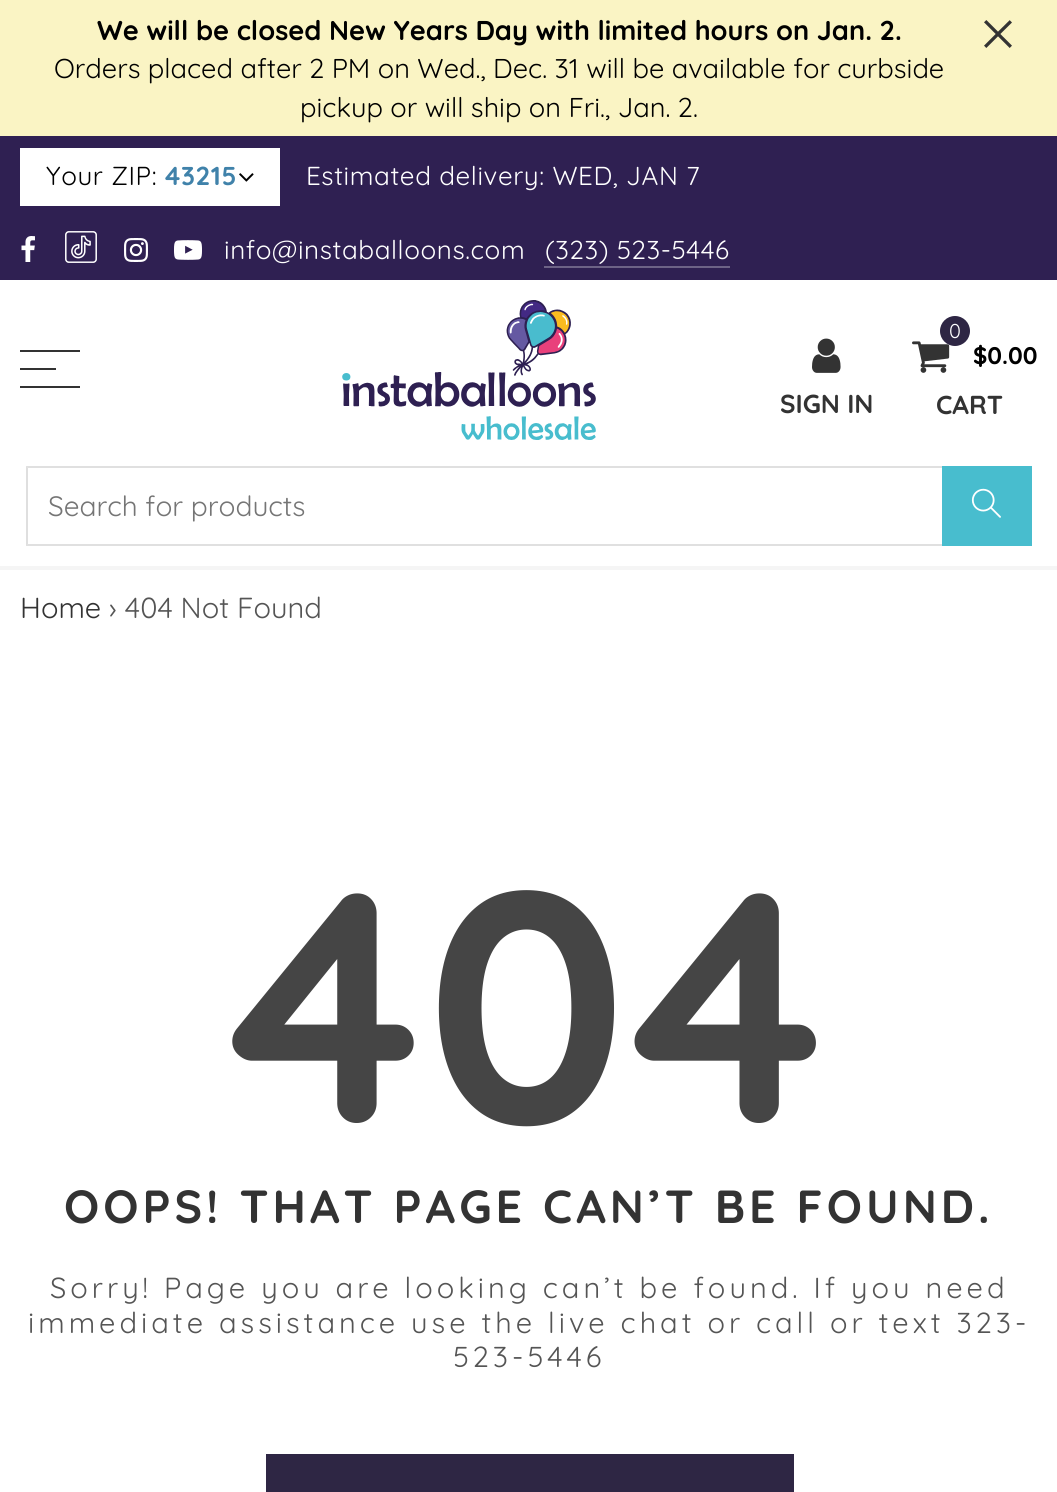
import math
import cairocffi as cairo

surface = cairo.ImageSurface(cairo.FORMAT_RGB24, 1057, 1492)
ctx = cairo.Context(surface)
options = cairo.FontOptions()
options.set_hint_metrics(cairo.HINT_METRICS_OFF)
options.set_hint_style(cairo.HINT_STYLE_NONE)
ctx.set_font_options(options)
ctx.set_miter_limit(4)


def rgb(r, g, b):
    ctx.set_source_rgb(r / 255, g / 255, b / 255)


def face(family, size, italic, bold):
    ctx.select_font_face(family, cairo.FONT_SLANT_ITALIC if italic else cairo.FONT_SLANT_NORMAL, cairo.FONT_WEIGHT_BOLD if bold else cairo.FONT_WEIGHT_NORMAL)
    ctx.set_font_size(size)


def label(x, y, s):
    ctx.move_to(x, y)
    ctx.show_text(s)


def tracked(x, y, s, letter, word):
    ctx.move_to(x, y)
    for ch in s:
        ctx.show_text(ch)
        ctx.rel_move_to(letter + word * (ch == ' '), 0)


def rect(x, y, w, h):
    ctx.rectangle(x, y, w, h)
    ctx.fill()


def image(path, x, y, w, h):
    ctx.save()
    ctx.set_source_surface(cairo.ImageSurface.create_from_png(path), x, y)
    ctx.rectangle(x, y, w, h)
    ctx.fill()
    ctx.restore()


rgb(255, 255, 255)
ctx.paint()
rgb(250, 244, 196)
rect(0, 0, 1057, 136)
face('Quicksand', 27.2, 0, 1)
rgb(0, 0, 0)
label(97, 40, 'We will be closed New Years Day with limited hours on Jan. 2.')
face('Quicksand', 27.2, 0, 0)
label(54, 78, 'Orders placed after 2 PM on Wed., Dec. 31 will be available for curbside')
label(300, 117, 'pickup or will ship on Fri., Jan. 2.')
image('image0.png', 984, 20, 28, 28)
rgb(47, 32, 82)
rect(0, 136, 1057, 144)
rgb(255, 255, 255)
rect(20, 148, 260, 58)
face('Quicksand', 26, 0, 0)
rgb(0, 0, 0)
tracked(46, 185, 'Your ZIP:', 0.6, 0)
face('Quicksand', 26, 0, 1)
rgb(64, 130, 170)
tracked(165, 185, '43215', 0.6, 0)
image('image1.png', 239, 173, 15, 9)
face('Quicksand', 26, 0, 0)
rgb(255, 255, 255)
tracked(306, 185, 'Estimated delivery: WED, JAN 7', 0.6, 0)
image('image2.png', 21, 236, 14, 26)
image('image3.png', 65, 231, 32, 32)
image('image4.png', 124, 238, 24, 24)
image('image5.png', 174, 240, 28, 20)
tracked(224, 259, 'info@instaballoons.com', 0.6, 0)
tracked(545, 259, '(323) 523-5446', 0.6, 0)
rgb(109, 99, 134)
rect(544, 266, 186, 2)
rgb(245, 245, 245)
rect(0, 566, 1057, 4)
rgb(51, 51, 51)
rect(20, 350, 60, 2)
rect(20, 368, 36, 2)
rect(20, 386, 60, 2)
image('image6.png', 342, 300, 254, 140)
image('image7.png', 812, 338, 29, 35)
face('Quicksand', 26, 0, 1)
label(780, 413, 'SIGN IN')
image('image8.png', 912, 341, 38, 32)
rgb(46, 38, 68)
ctx.arc(955, 331, 15, 0, 2 * math.pi)
ctx.fill()
face('Quicksand', 20, 0, 0)
rgb(255, 255, 255)
label(949, 338, '0')
face('Quicksand', 24, 0, 1)
rgb(0, 0, 0)
label(973, 364, '$0.00')
face('Quicksand', 26, 0, 1)
rgb(51, 51, 51)
label(936, 414, 'CART')
rgb(224, 224, 224)
ctx.new_path()
ctx.move_to(26, 466)
ctx.line_to(942, 466)
ctx.line_to(942, 468)
ctx.line_to(28, 468)
ctx.close_path()
ctx.fill()
ctx.new_path()
ctx.move_to(942, 546)
ctx.line_to(26, 546)
ctx.line_to(28, 544)
ctx.line_to(942, 544)
ctx.close_path()
ctx.fill()
ctx.set_source_rgba(0.506, 0.506, 0.506, 0.25)
ctx.new_path()
ctx.move_to(26, 546)
ctx.line_to(26, 466)
ctx.line_to(28, 468)
ctx.line_to(28, 544)
ctx.close_path()
ctx.fill()
face('Quicksand', 28, 0, 0)
rgb(117, 117, 117)
label(48, 516, 'Search for products')
rgb(72, 189, 206)
rect(942, 466, 90, 80)
image('image9.png', 971, 488, 30, 30)
face('Quicksand', 29, 0, 0)
rgb(51, 51, 51)
label(20, 618, 'Home')
rgb(85, 85, 85)
label(109, 618, '› 404 Not Found')
face('Quicksand', 328, 0, 1)
rgb(69, 69, 69)
tracked(229, 1123, '404', 4, 0)
face('Quicksand', 46.4, 0, 1)
rgb(51, 51, 51)
tracked(64, 1223, 'OOPS! THAT PAGE CAN’T BE FOUND.', 4, 0)
face('Quicksand', 29, 0, 0)
rgb(85, 85, 85)
tracked(50, 1298, 'Sorry! Page you are looking can’t be found. If you need', 4, 0)
tracked(28, 1333, 'immediate assistance use the live chat or call or text 323-', 4, 0)
tracked(453, 1367, '523-5446', 4, 0)
rgb(46, 38, 68)
rect(266, 1454, 528, 38)
surface.write_to_png('render.png')
